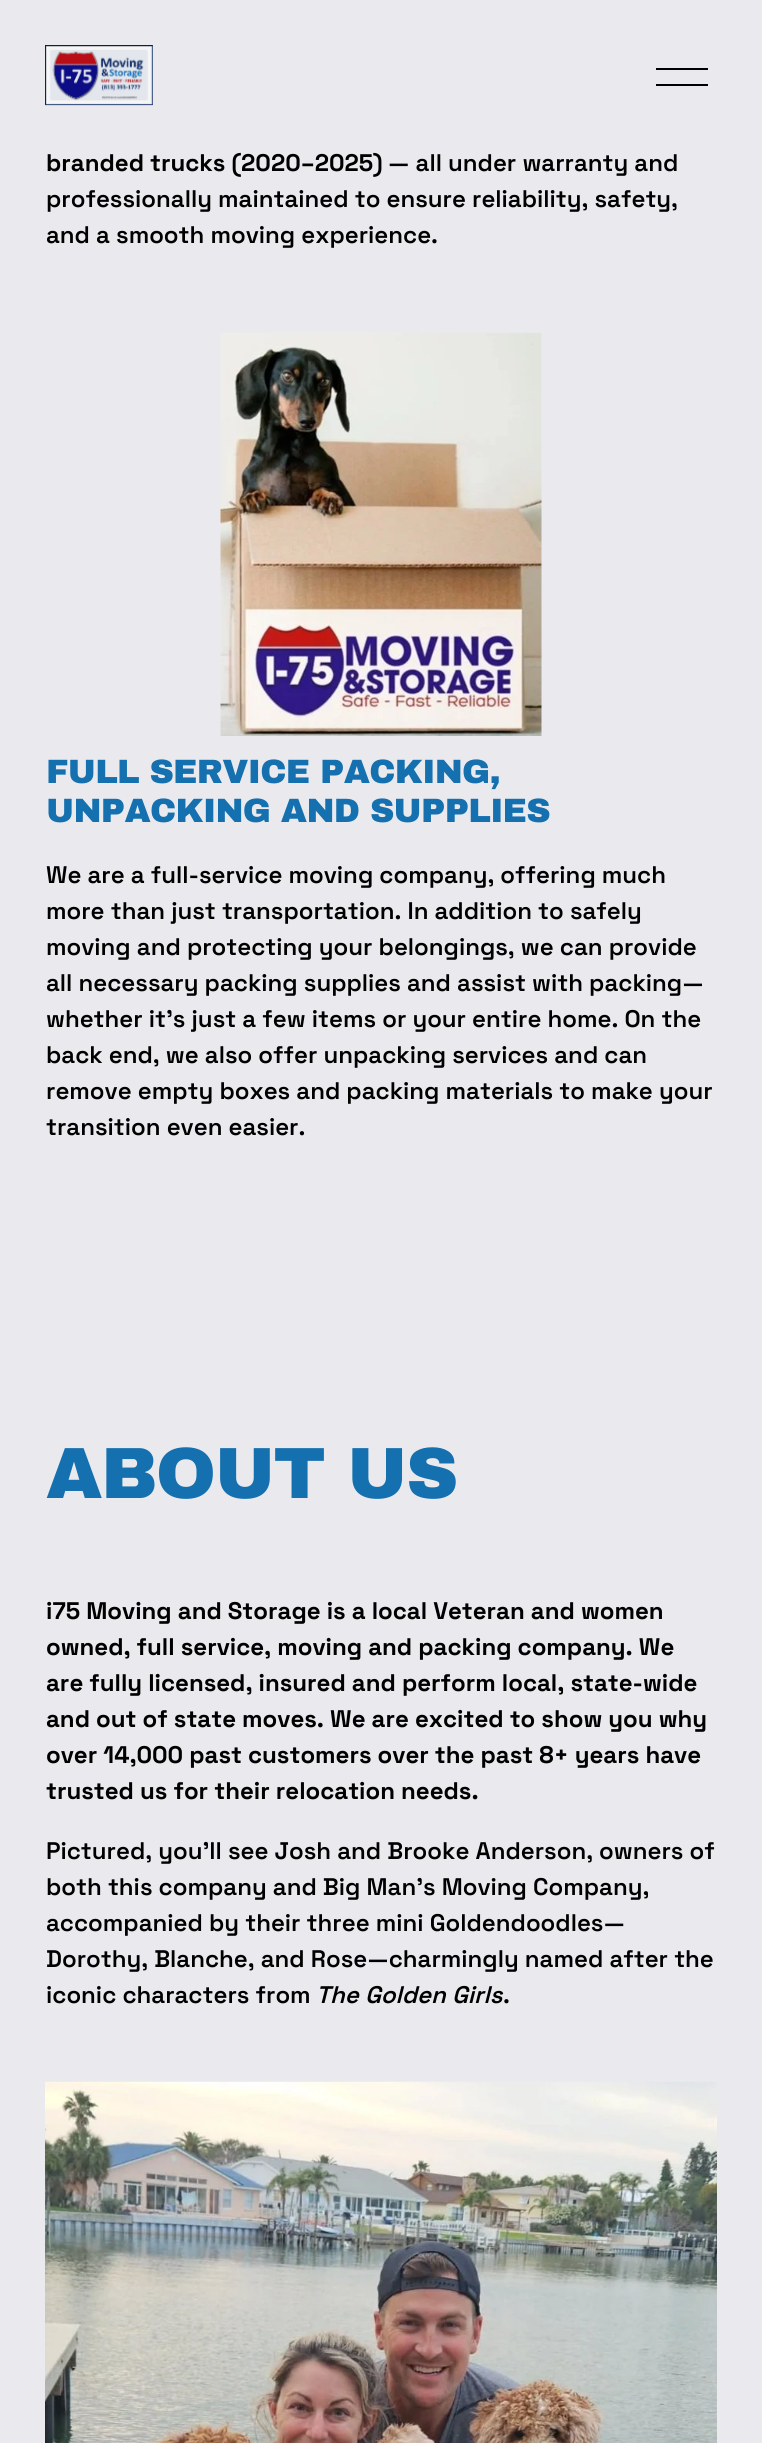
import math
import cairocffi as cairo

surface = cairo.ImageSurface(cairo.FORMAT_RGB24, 762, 2443)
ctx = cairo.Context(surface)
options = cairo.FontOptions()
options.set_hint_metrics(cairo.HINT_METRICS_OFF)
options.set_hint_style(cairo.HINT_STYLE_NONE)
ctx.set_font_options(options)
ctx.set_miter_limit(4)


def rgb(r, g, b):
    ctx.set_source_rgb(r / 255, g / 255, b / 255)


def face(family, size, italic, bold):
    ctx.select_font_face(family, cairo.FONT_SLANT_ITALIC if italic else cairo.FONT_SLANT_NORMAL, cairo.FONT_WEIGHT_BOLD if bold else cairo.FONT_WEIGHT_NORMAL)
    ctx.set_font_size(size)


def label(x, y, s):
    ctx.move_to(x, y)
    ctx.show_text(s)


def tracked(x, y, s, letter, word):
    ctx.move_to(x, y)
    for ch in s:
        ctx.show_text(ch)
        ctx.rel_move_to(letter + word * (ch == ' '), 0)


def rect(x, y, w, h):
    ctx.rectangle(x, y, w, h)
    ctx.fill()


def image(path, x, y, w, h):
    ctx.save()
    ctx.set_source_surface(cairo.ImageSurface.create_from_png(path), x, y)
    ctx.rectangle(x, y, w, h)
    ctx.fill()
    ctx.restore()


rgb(234, 234, 238)
ctx.paint()
image('image0.png', 45, 45, 108, 61)
rgb(0, 0, 0)
rect(656, 68, 52, 2)
rect(656, 84, 52, 2)
face('Space Grotesk', 24, 0, 1)
label(46, 171, 'branded trucks (2020–2025)')
face('Space Grotesk SemiBold', 24, 0, 0)
label(388, 171, '— all under warranty and')
label(46, 207, 'professionally maintained to ensure reliability, safety,')
label(46, 243, 'and a smooth moving experience.')
image('image1.png', 220, 332, 322, 404)
face('Archivo Black Black', 33.75, 0, 0)
rgb(20, 112, 175)
tracked(46, 783, 'FULL SERVICE PACKING,', -0.7, 0)
tracked(46, 822, 'UNPACKING AND SUPPLIES', -0.7, 0)
face('Space Grotesk SemiBold', 24, 0, 0)
rgb(0, 0, 0)
label(46, 883, 'We are a full-service moving company, offering much')
label(46, 919, 'more than just transportation. In addition to safely')
label(46, 955, 'moving and protecting your belongings, we can provide')
label(46, 991, 'all necessary packing supplies and assist with packing—')
label(46, 1027, 'whether it’s just a few items or your entire home. On the')
label(46, 1063, 'back end, we also offer unpacking services and can')
label(46, 1099, 'remove empty boxes and packing materials to make your')
label(46, 1135, 'transition even easier.')
face('Archivo Black Black', 72.5, 0, 0)
rgb(20, 112, 175)
tracked(46, 1498, 'ABOUT US', -1.5, 0)
face('Space Grotesk', 24, 0, 1)
rgb(0, 0, 0)
label(46, 1619, 'i75 Moving and Storage is a local Veteran and women')
label(46, 1655, 'owned, full service, moving and packing company. We')
label(46, 1691, 'are fully licensed, insured and perform local, state-wide')
label(46, 1727, 'and out of state moves. We are excited to show you why')
label(46, 1763, 'over 14,000 past customers over the past 8+ years have')
label(46, 1799, 'trusted us for their relocation needs.')
face('Space Grotesk SemiBold', 24, 0, 0)
label(46, 1859, 'Pictured, you\'ll see Josh and Brooke Anderson, owners of')
label(46, 1895, 'both this company and Big Man\'s Moving Company,')
label(46, 1931, 'accompanied by their three mini Goldendoodles—')
label(46, 1967, 'Dorothy, Blanche, and Rose—charmingly named after the')
label(46, 2003, 'iconic characters from')
face('Space Grotesk SemiBold', 24, 1, 0)
label(316, 2003, 'The Golden Girls')
face('Space Grotesk SemiBold', 24, 0, 0)
label(503, 2003, '.')
image('image2.png', 45, 2081, 672, 362)
surface.write_to_png('render.png')
